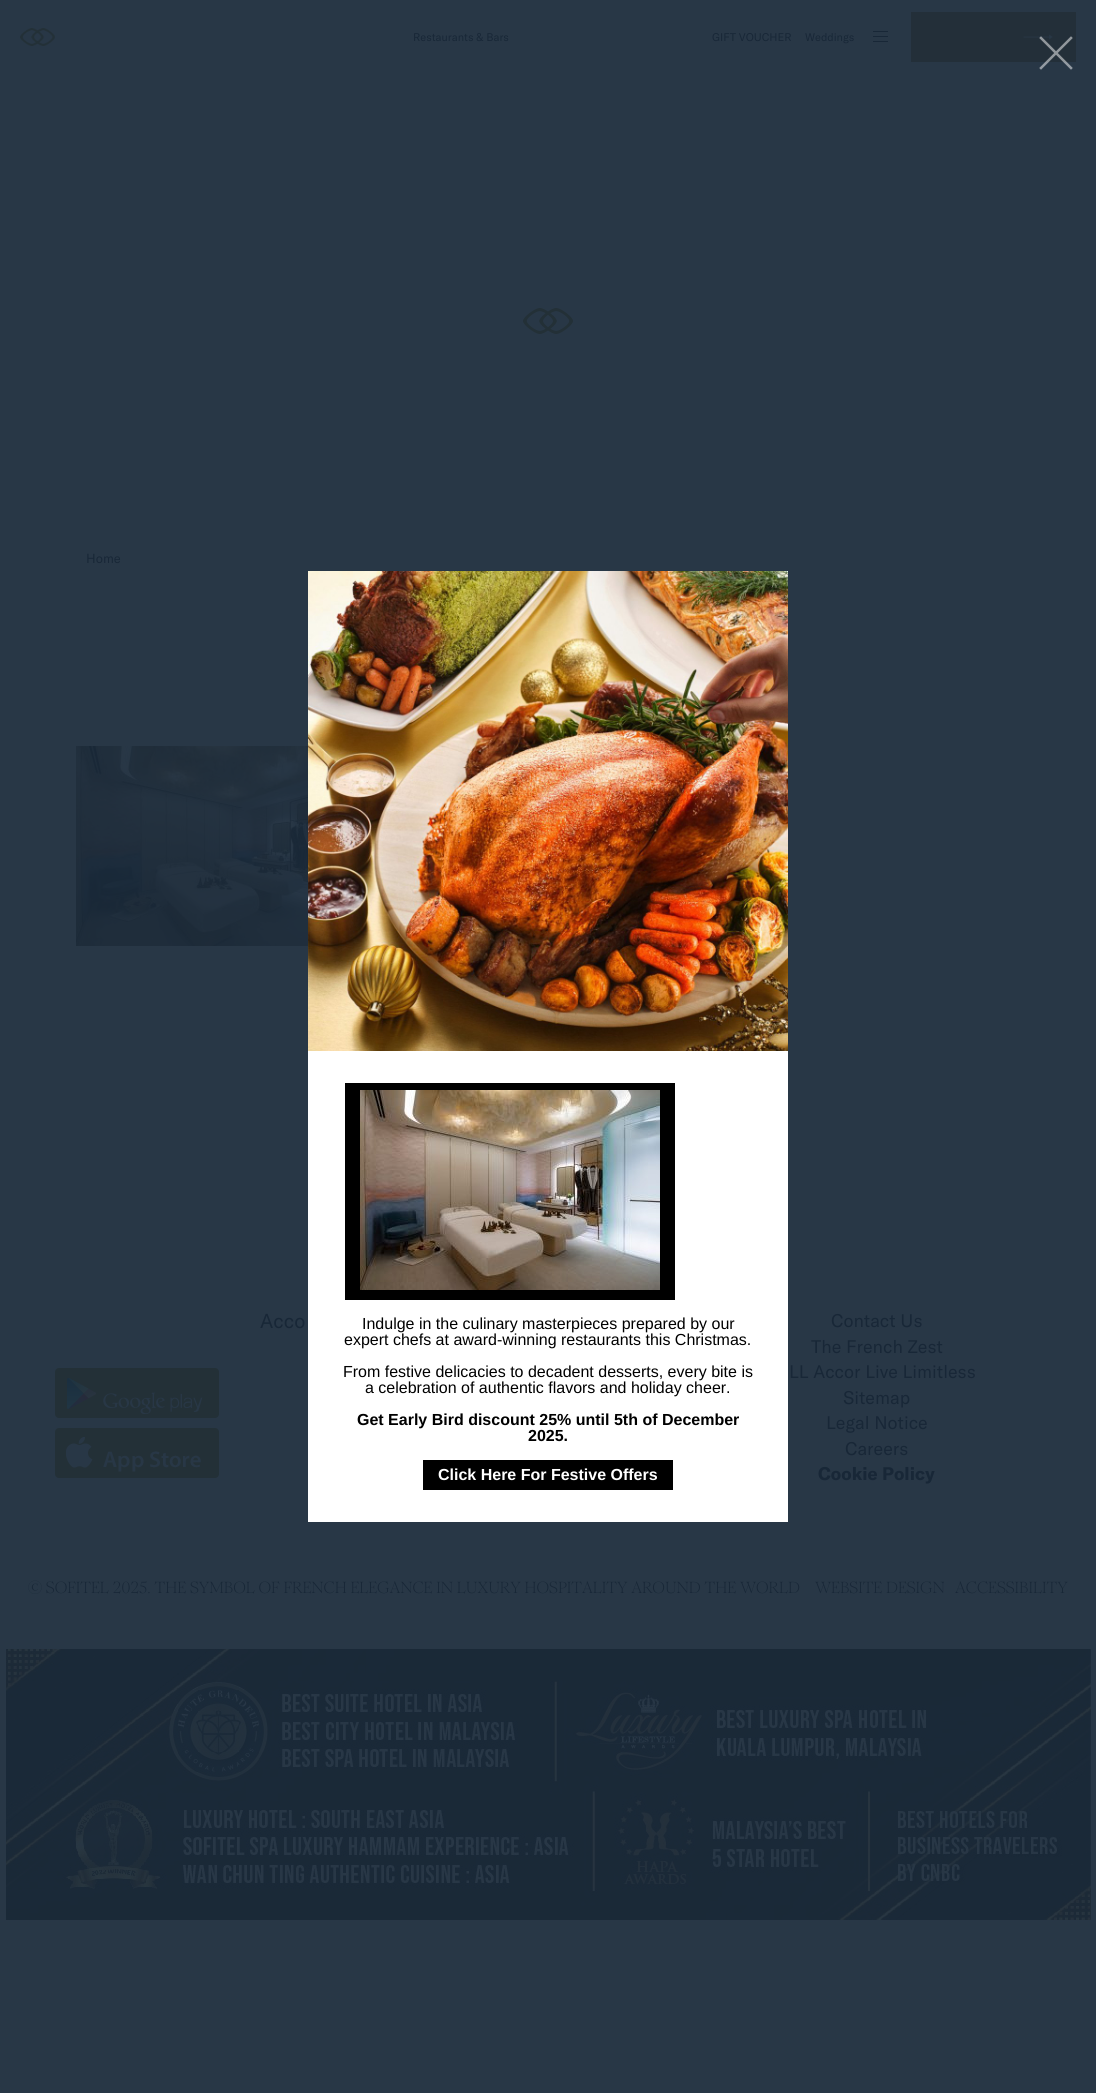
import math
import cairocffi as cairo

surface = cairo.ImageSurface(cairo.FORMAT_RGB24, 1096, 2093)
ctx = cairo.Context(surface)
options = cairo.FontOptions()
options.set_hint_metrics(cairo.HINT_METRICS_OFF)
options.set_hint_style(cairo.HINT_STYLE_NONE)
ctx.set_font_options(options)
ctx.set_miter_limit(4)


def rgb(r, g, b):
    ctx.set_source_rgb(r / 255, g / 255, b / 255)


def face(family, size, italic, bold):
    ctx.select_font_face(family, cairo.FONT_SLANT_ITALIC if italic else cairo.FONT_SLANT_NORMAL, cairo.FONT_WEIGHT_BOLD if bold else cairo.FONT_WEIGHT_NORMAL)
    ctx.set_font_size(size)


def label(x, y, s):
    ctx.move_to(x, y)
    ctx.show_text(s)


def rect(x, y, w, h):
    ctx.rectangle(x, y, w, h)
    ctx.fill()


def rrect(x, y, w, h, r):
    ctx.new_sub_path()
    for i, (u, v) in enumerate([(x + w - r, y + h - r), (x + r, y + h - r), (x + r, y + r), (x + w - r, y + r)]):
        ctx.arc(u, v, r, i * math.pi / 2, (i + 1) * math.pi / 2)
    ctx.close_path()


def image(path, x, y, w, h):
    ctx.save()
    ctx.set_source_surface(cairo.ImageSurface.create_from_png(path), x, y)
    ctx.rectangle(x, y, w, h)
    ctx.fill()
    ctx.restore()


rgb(40, 55, 70)
ctx.paint()
image('image0.png', 20, 28, 35, 18)
face('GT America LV', 11, 0, 0)
rgb(24, 39, 55)
label(413, 41, 'Restaurants & Bars')
label(712, 41, 'GIFT VOUCHER')
label(805, 41, 'Weddings')
rect(873, 36, 15, 1)
rect(873, 31, 15, 1)
rect(873, 41, 15, 1)
rgb(35, 47, 57)
rect(911, 12, 165, 50)
image('image1.png', 1023, 34, 30, 6)
image('image2.png', 523, 308, 50, 26)
face('GT America LV', 13, 0, 0)
rgb(24, 39, 55)
label(86, 563, 'Home')
image('image3.png', 76, 746, 232, 200)
face('GT America LV', 20, 0, 0)
label(260, 1328, 'Acco')
rgb(35, 48, 55)
rrect(55, 1368, 164, 50, 4)
ctx.fill()
image('image4.png', 67, 1378, 136, 36)
rrect(55, 1428, 164, 50, 4)
ctx.fill()
image('image5.png', 66, 1437, 135, 35)
face('GT America LV', 18, 0, 0)
rgb(24, 39, 55)
label(831, 1327, 'Contact Us')
label(811, 1353, 'The French Zest')
label(789, 1378, 'LL Accor Live Limitless')
label(843, 1404, 'Sitemap')
label(826, 1429, 'Legal Notice')
label(845, 1455, 'Careers')
face('GT America LV', 18, 0, 1)
label(818, 1480, 'Cookie Policy')
face('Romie', 16, 0, 0)
label(28, 1593, '© SOFITEL 2025. THE SYMBOL OF FRENCH ELEGANCE IN LUXURY HOSPITALITY AROUND THE WORLD')
label(815, 1593, 'WEBSITE DESIGN')
label(955, 1593, 'ACCESSIBILITY')
image('image6.png', 6, 1649, 1085, 271)
ctx.new_path()
ctx.move_to(1041, 38)
ctx.line_to(1071, 68)
ctx.move_to(1041, 68)
ctx.line_to(1071, 38)
ctx.set_source_rgba(1, 1, 1, 0.5)
ctx.set_line_width(2.5)
ctx.set_line_cap(cairo.LINE_CAP_SQUARE)
ctx.stroke()
rgb(255, 255, 255)
rect(308, 1051, 480, 471)
image('image7.png', 308, 571, 480, 480)
rgb(0, 0, 0)
rect(345, 1083, 330, 217)
image('image8.png', 360, 1090, 300, 200)
face('Liberation Sans', 16, 0, 0)
label(362, 1329, 'Indulge in the culinary masterpieces prepared by our')
label(344, 1345, 'expert chefs at award-winning restaurants this Christmas.')
label(343, 1377, 'From festive delicacies to decadent desserts, every bite is')
label(365, 1393, 'a celebration of authentic flavors and holiday cheer.')
face('Liberation Sans', 16, 0, 1)
label(357, 1425, 'Get Early Bird discount 25% until 5th of December')
label(528, 1441, '2025.')
rect(423, 1460, 250, 30)
rgb(255, 255, 255)
label(438, 1480, 'Click Here For Festive Offers')
surface.write_to_png('render.png')
